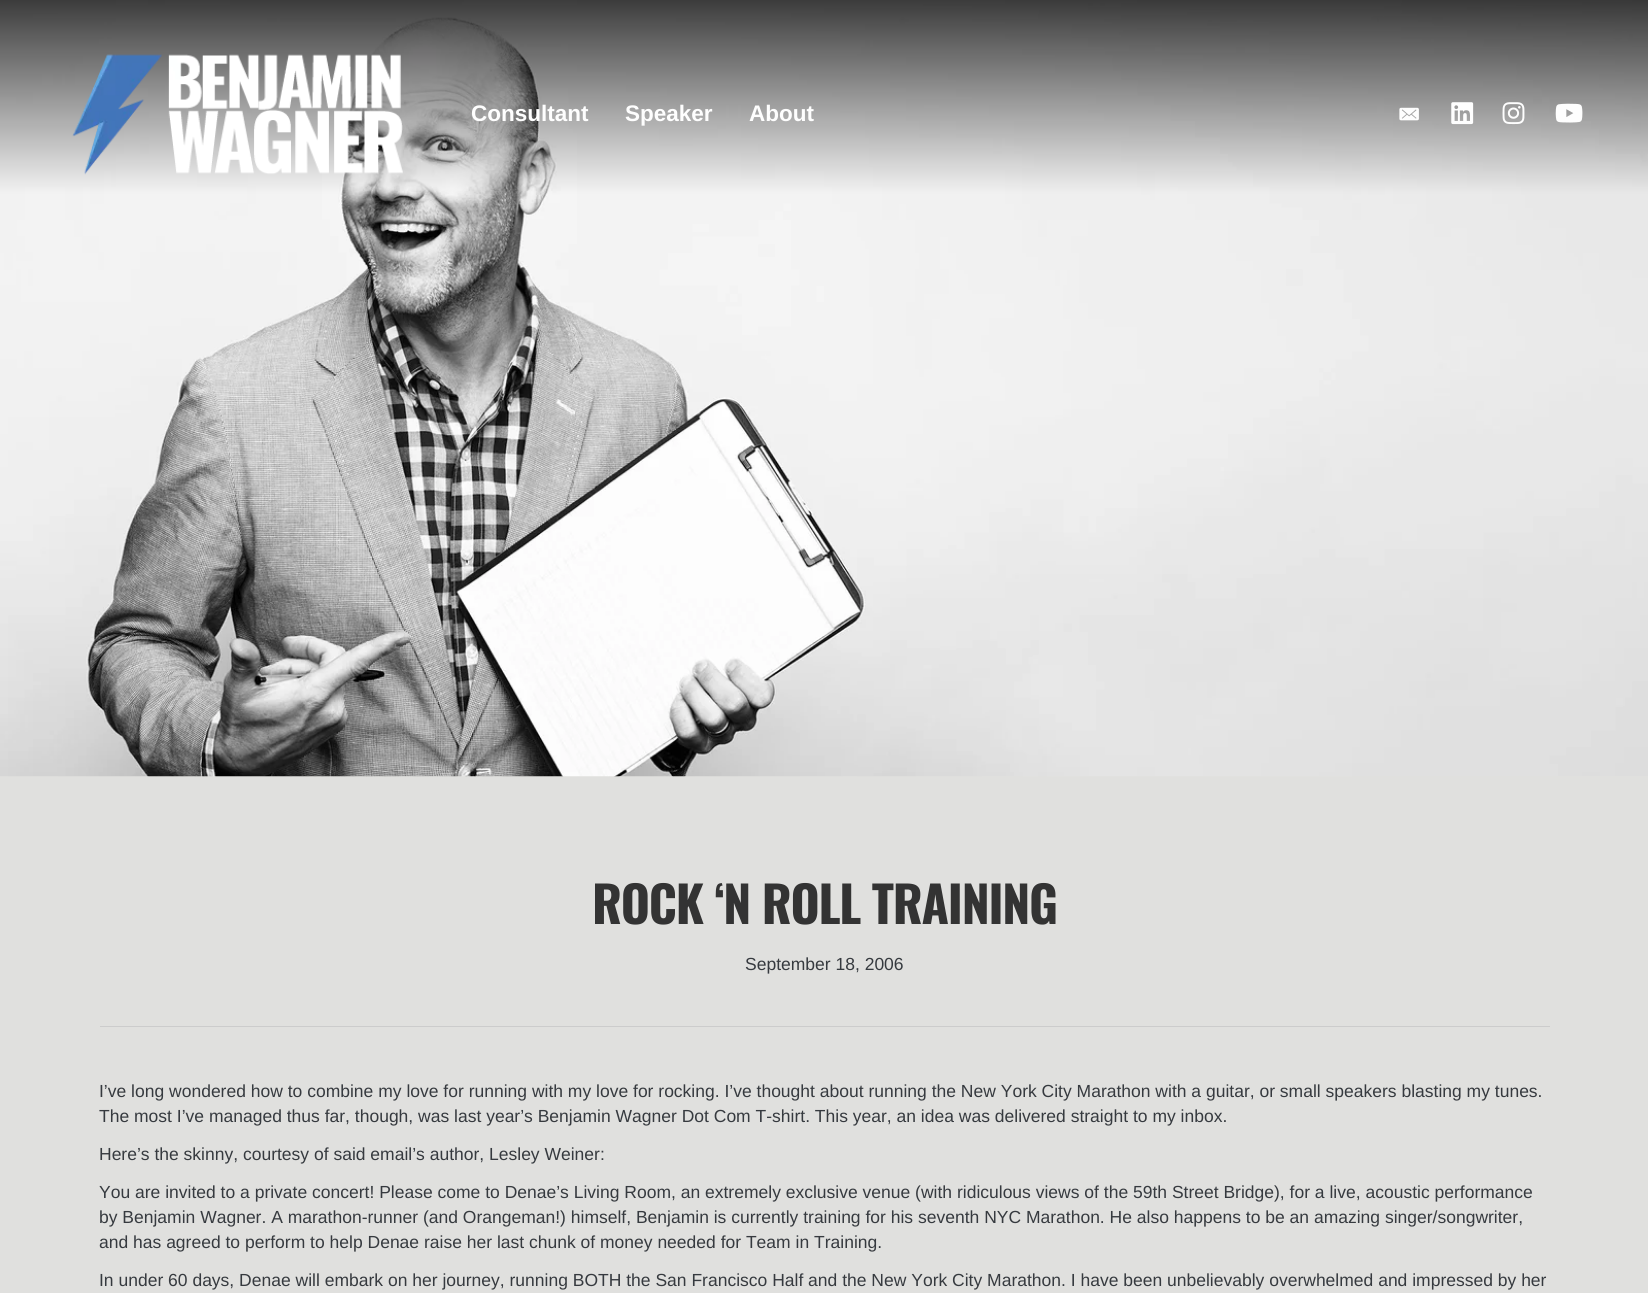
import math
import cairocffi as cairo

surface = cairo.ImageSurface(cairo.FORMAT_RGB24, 1648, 1293)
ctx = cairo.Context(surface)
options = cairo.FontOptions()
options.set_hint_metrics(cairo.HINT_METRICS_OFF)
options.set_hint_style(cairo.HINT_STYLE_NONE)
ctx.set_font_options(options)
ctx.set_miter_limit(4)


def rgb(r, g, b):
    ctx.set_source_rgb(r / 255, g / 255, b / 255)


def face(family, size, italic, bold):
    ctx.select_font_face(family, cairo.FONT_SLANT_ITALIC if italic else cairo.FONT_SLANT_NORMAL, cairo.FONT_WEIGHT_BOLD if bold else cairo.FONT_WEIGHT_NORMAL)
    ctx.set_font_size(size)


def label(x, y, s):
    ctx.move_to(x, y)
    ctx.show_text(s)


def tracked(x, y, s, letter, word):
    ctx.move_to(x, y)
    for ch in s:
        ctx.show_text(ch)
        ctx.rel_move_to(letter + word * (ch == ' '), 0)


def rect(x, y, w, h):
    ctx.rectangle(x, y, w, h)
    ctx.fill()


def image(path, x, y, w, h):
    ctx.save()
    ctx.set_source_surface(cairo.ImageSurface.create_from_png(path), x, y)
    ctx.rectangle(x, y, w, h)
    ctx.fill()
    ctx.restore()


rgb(224, 224, 222)
ctx.paint()
image('image5.png', 0, 0, 1648, 777)
image('image0.png', 72, 54, 331, 121)
face('Liberation Sans', 22.5, 0, 1)
rgb(254, 254, 254)
label(471, 121, 'Consultant')
label(625, 121, 'Speaker')
label(749, 121, 'About')
image('image1.png', 1399, 107, 20, 14)
image('image2.png', 1451, 102, 23, 23)
image('image3.png', 1502, 102, 23, 23)
image('image4.png', 1555, 103, 28, 20)
face('Oswald', 50, 0, 1)
rgb(51, 51, 51)
tracked(592, 924, 'ROCK ‘N ROLL TRAINING', -1.25, 0)
face('Liberation Sans', 17.5, 0, 0)
rgb(54, 58, 63)
label(745, 970, 'September 18, 2006')
rgb(204, 204, 204)
rect(100, 1026, 1450, 1)
rgb(54, 58, 63)
label(99, 1097, 'I’ve long wondered how to combine my love for running with my love for rocking. I’ve thought about running the New York City Marathon with a guitar, or small speakers blasting my tunes.')
label(99, 1122, 'The most I’ve managed thus far, though, was last year’s Benjamin Wagner Dot Com T-shirt. This year, an idea was delivered straight to my inbox.')
label(99, 1160, 'Here’s the skinny, courtesy of said email’s author, Lesley Weiner:')
label(99, 1198, 'You are invited to a private concert! Please come to Denae’s Living Room, an extremely exclusive venue (with ridiculous views of the 59th Street Bridge), for a live, acoustic performance')
label(99, 1223, 'by Benjamin Wagner. A marathon-runner (and Orangeman!) himself, Benjamin is currently training for his seventh NYC Marathon. He also happens to be an amazing singer/songwriter,')
label(99, 1248, 'and has agreed to perform to help Denae raise her last chunk of money needed for Team in Training.')
label(99, 1286, 'In under 60 days, Denae will embark on her journey, running BOTH the San Francisco Half and the New York City Marathon. I have been unbelievably overwhelmed and impressed by her')
surface.write_to_png('render.png')
